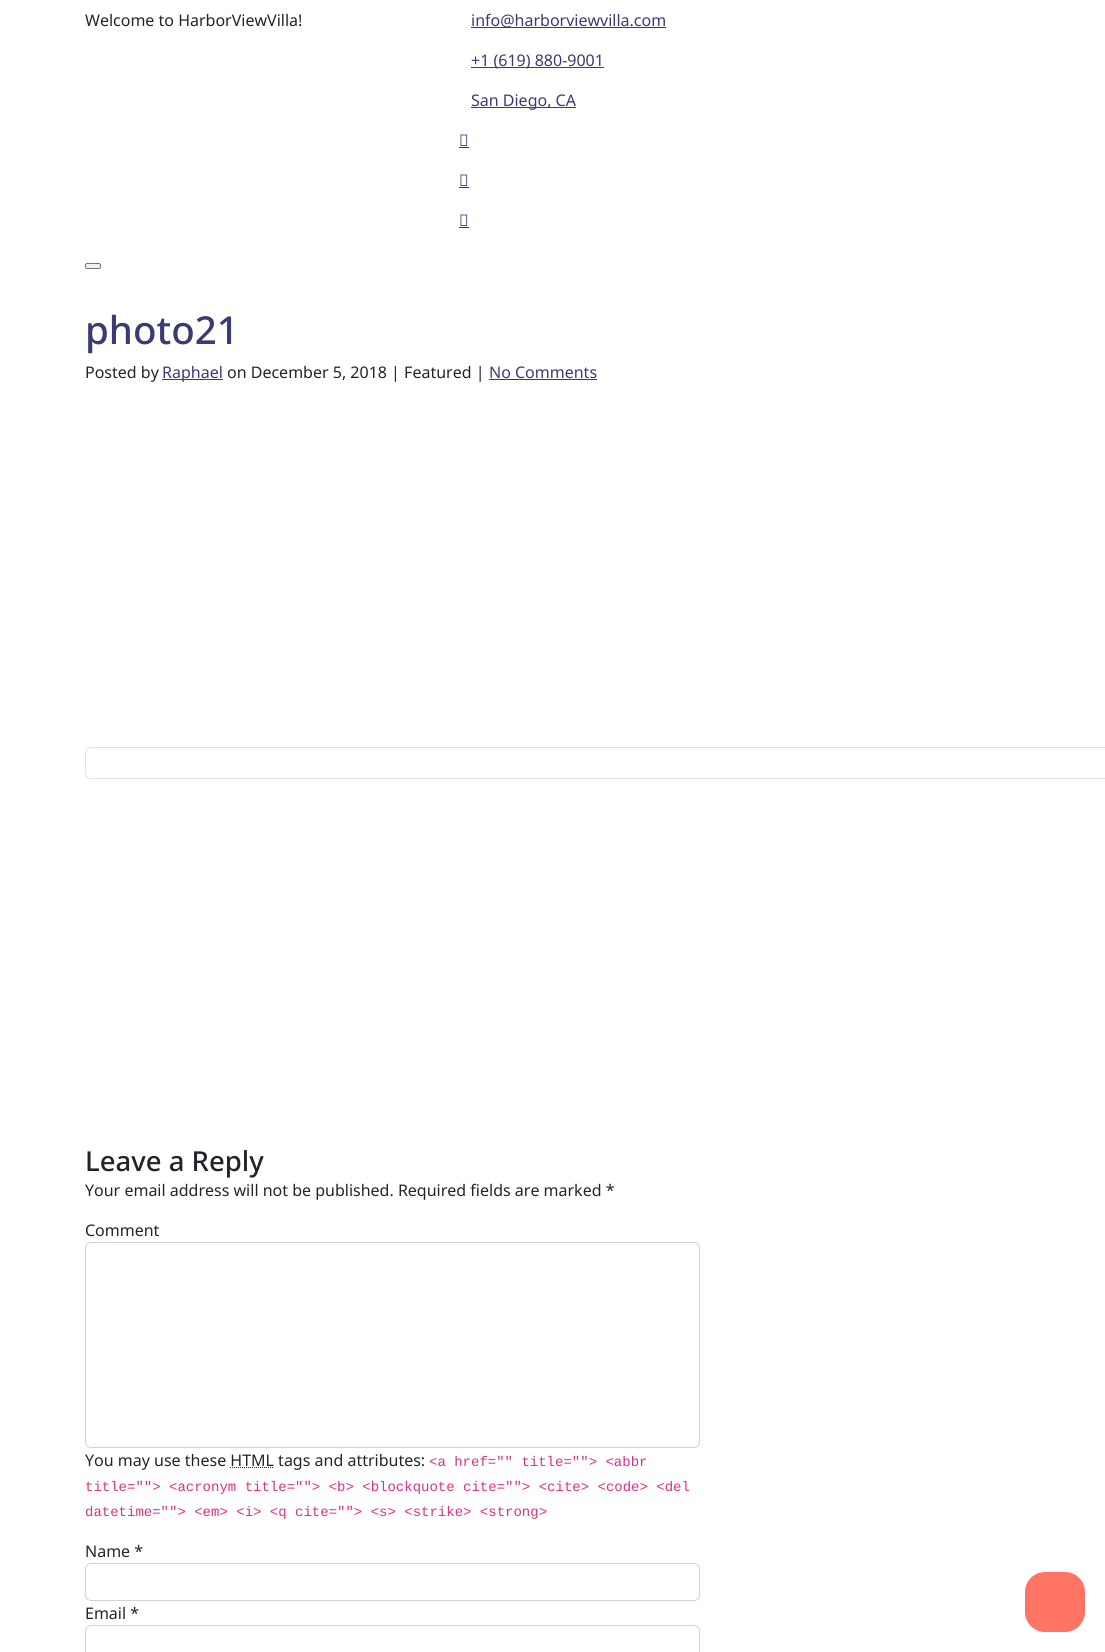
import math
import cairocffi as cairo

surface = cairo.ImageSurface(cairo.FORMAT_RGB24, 1105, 1652)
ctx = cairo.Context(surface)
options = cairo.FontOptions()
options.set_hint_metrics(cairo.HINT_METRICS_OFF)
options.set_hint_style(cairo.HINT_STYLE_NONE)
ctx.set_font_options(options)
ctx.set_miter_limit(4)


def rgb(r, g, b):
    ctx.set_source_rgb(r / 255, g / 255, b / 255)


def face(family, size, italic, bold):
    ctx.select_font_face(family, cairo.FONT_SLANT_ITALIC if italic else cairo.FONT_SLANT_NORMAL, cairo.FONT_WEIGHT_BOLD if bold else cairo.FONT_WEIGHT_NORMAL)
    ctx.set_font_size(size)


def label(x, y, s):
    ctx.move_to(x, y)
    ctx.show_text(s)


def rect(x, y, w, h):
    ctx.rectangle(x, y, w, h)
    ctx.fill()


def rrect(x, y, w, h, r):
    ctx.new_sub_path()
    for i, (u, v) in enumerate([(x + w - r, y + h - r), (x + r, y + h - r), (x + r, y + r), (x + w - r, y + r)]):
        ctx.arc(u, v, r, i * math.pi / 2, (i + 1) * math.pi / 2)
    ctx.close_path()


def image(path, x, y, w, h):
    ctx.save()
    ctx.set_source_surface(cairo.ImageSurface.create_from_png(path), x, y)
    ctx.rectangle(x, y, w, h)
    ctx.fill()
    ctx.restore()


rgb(255, 255, 255)
ctx.paint()
face('Noto Sans', 16, 0, 0)
rgb(33, 37, 41)
label(85, 26, 'Welcome to HarborViewVilla!')
rgb(58, 59, 116)
rect(471, 27, 195, 1)
label(471, 26, 'info@harborviewvilla.com')
rect(471, 67, 133, 1)
label(471, 66, '+1 (619) 880-9001')
rect(471, 107, 105, 1)
label(471, 106, 'San Diego, CA')
image('image0.png', 460, 134, 8, 12)
rect(459, 147, 10, 1)
image('image0.png', 460, 174, 8, 12)
rect(459, 187, 10, 1)
image('image0.png', 460, 214, 8, 12)
rect(459, 227, 10, 1)
rgb(239, 239, 239)
rrect(85.5, 263.5, 15, 5, 1.5)
ctx.fill_preserve()
rgb(118, 118, 118)
ctx.set_line_width(1)
ctx.stroke()
face('Noto Sans Medium', 38.5, 0, 0)
rgb(58, 59, 116)
label(85, 344, 'photo21')
face('Noto Sans', 16, 0, 0)
rgb(33, 37, 41)
label(85, 378, 'Posted by')
rgb(58, 59, 116)
rect(162, 379, 61, 1)
label(162, 378, 'Raphael')
rgb(33, 37, 41)
label(227, 378, 'on December 5, 2018 | Featured |')
rgb(58, 59, 116)
label(489, 378, 'No Comments')
rect(489, 379, 108, 1)
rrect(85.5, 747.5, 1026, 31, 5.5)
rgb(222, 226, 230)
ctx.stroke()
face('Noto Sans Medium', 27.5, 0, 0)
rgb(33, 37, 41)
label(85, 1171, 'Leave a Reply')
face('Noto Sans', 16, 0, 0)
label(85, 1196, 'Your email address will not be published. Required fields are marked *')
label(85, 1236, 'Comment')
rrect(85.5, 1242.5, 614, 205, 5.5)
rgb(206, 212, 218)
ctx.stroke()
rgb(33, 37, 41)
label(85, 1466, 'You may use these HTML tags and attributes:')
face('Liberation Mono', 14, 0, 0)
rgb(214, 51, 132)
label(429, 1466, '<a href="" title=""> <abbr')
ctx.new_path()
ctx.move_to(230, 1467.5)
ctx.line_to(273.5, 1467.5)
rgb(33, 37, 41)
ctx.set_dash([1, 1])
ctx.stroke()
rgb(214, 51, 132)
label(85, 1491, 'title=""> <acronym title=""> <b> <blockquote cite=""> <cite> <code> <del')
label(85, 1516, 'datetime=""> <em> <i> <q cite=""> <s> <strike> <strong>')
face('Noto Sans', 16, 0, 0)
rgb(33, 37, 41)
label(85, 1557, 'Name *')
rrect(85.5, 1563.5, 614, 37, 5.5)
rgb(206, 212, 218)
ctx.set_dash([])
ctx.stroke()
rgb(33, 37, 41)
label(85, 1619, 'Email *')
rrect(85.5, 1625.5, 614, 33, 5.5)
rgb(206, 212, 218)
ctx.stroke()
rgb(255, 116, 100)
rrect(1025, 1572, 60, 60, 20)
ctx.fill()
surface.write_to_png('render.png')
